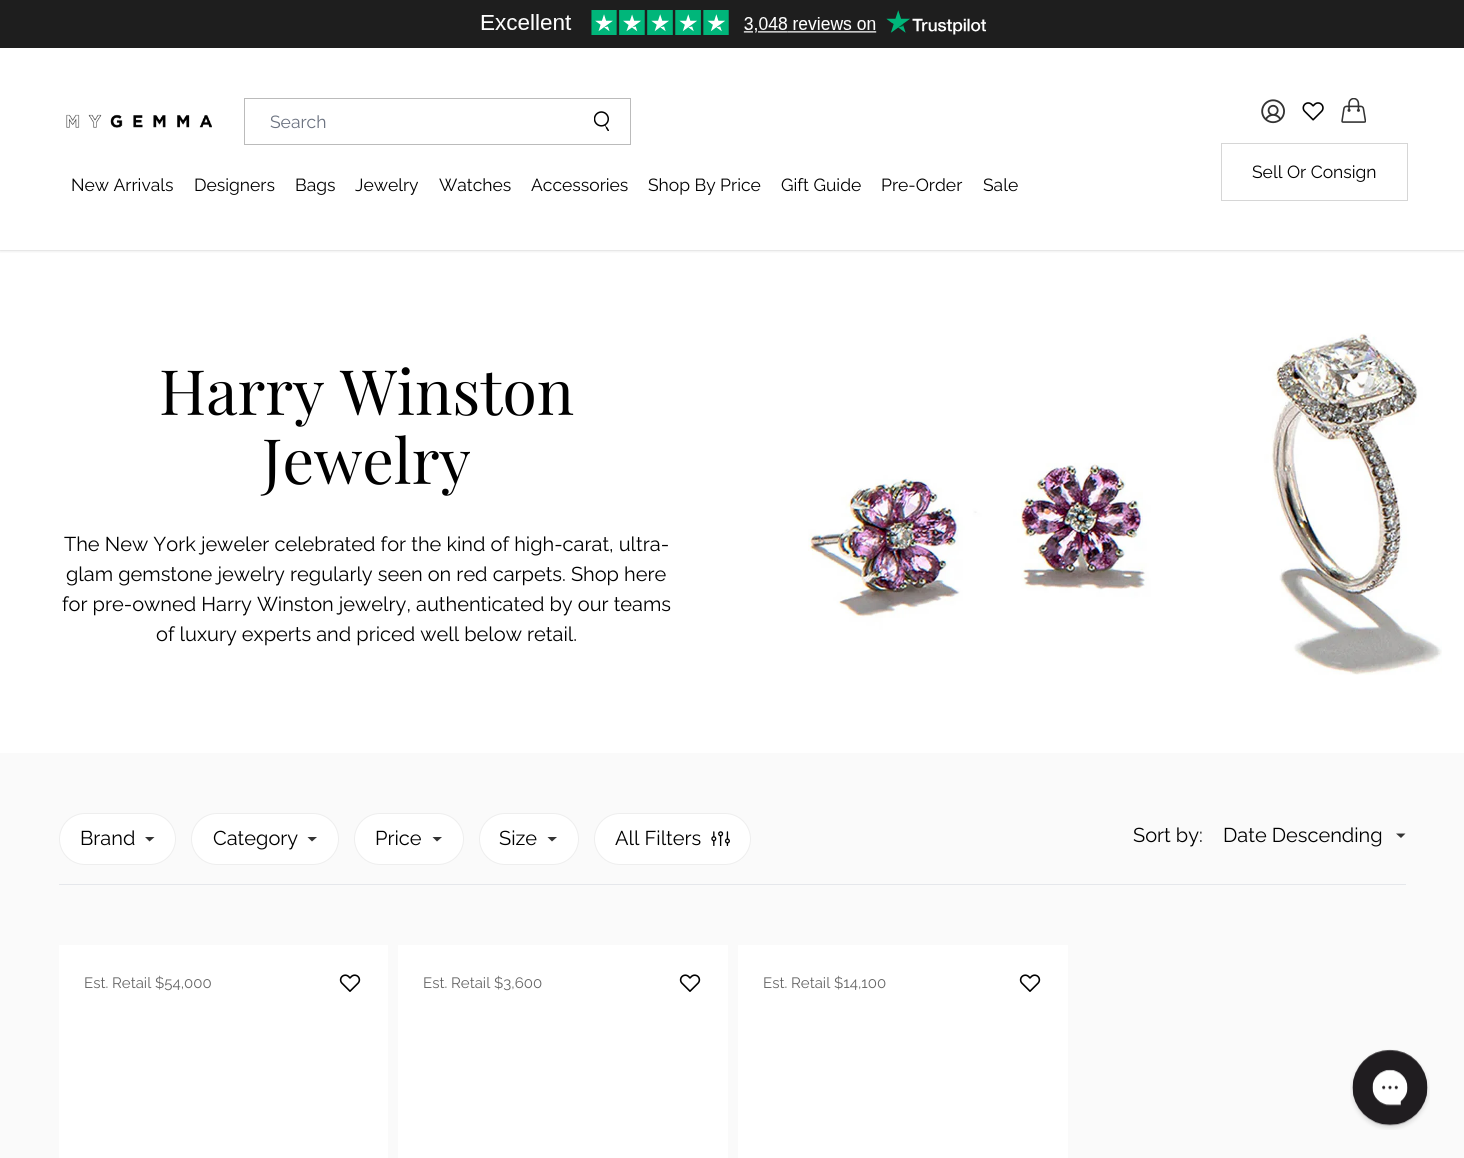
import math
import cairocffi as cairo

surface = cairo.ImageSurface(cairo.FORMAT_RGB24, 1464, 1158)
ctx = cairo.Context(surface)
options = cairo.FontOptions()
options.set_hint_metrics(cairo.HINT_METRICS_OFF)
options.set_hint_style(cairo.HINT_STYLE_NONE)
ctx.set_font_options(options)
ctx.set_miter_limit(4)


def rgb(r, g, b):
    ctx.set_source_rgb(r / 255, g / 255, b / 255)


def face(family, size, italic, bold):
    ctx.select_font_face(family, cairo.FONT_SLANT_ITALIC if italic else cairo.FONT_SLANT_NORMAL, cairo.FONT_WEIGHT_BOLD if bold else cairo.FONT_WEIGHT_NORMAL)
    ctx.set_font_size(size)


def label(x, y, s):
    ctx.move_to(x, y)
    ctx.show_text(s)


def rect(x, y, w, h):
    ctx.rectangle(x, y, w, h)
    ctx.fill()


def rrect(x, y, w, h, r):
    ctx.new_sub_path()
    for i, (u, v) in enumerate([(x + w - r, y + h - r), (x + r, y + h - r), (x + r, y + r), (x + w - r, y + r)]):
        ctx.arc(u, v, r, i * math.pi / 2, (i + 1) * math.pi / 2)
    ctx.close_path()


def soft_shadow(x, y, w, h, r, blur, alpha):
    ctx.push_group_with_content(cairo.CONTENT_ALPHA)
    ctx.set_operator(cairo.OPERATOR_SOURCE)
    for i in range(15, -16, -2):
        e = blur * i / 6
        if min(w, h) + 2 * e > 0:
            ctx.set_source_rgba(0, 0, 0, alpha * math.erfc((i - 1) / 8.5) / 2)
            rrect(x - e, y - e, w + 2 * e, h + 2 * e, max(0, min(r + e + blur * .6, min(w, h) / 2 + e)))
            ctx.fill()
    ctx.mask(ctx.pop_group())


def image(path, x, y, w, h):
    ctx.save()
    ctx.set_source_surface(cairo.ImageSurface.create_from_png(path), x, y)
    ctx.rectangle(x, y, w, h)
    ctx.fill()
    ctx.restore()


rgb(255, 255, 255)
ctx.paint()
ctx.save()
ctx.rectangle(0, 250, 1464, 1)
ctx.clip()
rgb(0, 0, 0)
soft_shadow(0, 1, 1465, 250, 0, 1, 0.06)
ctx.restore()
ctx.save()
ctx.rectangle(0, 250, 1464, 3)
ctx.clip()
rgb(0, 0, 0)
soft_shadow(0, 1, 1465, 250, 0, 2, 0.1)
ctx.restore()
rgb(30, 30, 30)
rect(0, 0, 1464, 48)
image('image0.png', 481, 10, 506, 25)
image('image1.png', 66, 114, 146, 14)
ctx.rectangle(244.5, 98.5, 386, 46)
rgb(187, 187, 187)
ctx.set_line_width(1)
ctx.stroke()
face('Raleway', 17.5, 0, 0)
rgb(107, 114, 128)
label(270, 128, 'Search')
image('image2.png', 594, 111, 15, 20)
rgb(0, 0, 0)
label(71, 191, 'New Arrivals')
label(194, 191, 'Designers')
label(295, 191, 'Bags')
label(355, 191, 'Jewelry')
label(439, 191, 'Watches')
label(531, 191, 'Accessories')
label(648, 191, 'Shop By Price')
label(781, 191, 'Gift Guide')
label(881, 191, 'Pre-Order')
label(983, 191, 'Sale')
image('image3.png', 1261, 99, 24, 25)
image('image4.png', 1302, 102, 22, 19)
image('image5.png', 1341, 98, 25, 25)
ctx.rectangle(1221.5, 143.5, 186, 57)
rgb(214, 214, 214)
ctx.stroke()
rgb(0, 0, 0)
label(1252, 178, 'Sell Or Consign')
face('Playfair Display', 62.5, 0, 0)
label(159, 415, 'Harry Winston')
label(262, 484, 'Jewelry')
face('Raleway', 20, 0, 0)
label(64, 551, 'The New York jeweler celebrated for the kind of high-carat, ultra-')
label(66, 581, 'glam gemstone jewelry regularly seen on red carpets. Shop here')
label(62, 611, 'for pre-owned Harry Winston jewelry, authenticated by our teams')
label(156, 641, 'of luxury experts and priced well below retail.')
image('image6.png', 808, 333, 634, 342)
rgb(250, 250, 250)
rect(0, 753, 1464, 405)
rgb(255, 255, 255)
rrect(59.5, 813.5, 116, 51, 25.5)
ctx.fill_preserve()
rgb(238, 238, 238)
ctx.stroke()
rgb(0, 0, 0)
label(80, 845, 'Brand')
rgb(51, 51, 51)
ctx.new_path()
ctx.move_to(145, 837)
ctx.line_to(149.5, 841.5)
ctx.line_to(154.5, 837)
ctx.close_path()
ctx.fill()
rgb(255, 255, 255)
rrect(191.5, 813.5, 147, 51, 25.5)
ctx.fill_preserve()
rgb(238, 238, 238)
ctx.stroke()
rgb(0, 0, 0)
label(213, 845, 'Category')
rgb(51, 51, 51)
ctx.new_path()
ctx.move_to(307.5, 837)
ctx.line_to(312, 841.5)
ctx.line_to(317, 837)
ctx.close_path()
ctx.fill()
rgb(255, 255, 255)
rrect(354.5, 813.5, 109, 51, 25.5)
ctx.fill_preserve()
rgb(238, 238, 238)
ctx.stroke()
rgb(0, 0, 0)
label(375, 845, 'Price')
rgb(51, 51, 51)
ctx.new_path()
ctx.move_to(432.5, 837)
ctx.line_to(437, 841.5)
ctx.line_to(442, 837)
ctx.close_path()
ctx.fill()
rgb(255, 255, 255)
rrect(479.5, 813.5, 99, 51, 25.5)
ctx.fill_preserve()
rgb(238, 238, 238)
ctx.stroke()
rgb(0, 0, 0)
label(499, 845, 'Size')
rgb(51, 51, 51)
ctx.new_path()
ctx.move_to(547.5, 837)
ctx.line_to(552, 841.5)
ctx.line_to(557, 837)
ctx.close_path()
ctx.fill()
rgb(255, 255, 255)
rrect(594.5, 813.5, 156, 51, 25.5)
ctx.fill_preserve()
rgb(238, 238, 238)
ctx.stroke()
rgb(0, 0, 0)
label(615, 845, 'All Filters')
image('image7.png', 711, 831, 19, 15)
rgb(229, 231, 235)
rect(59, 884, 1347, 1)
rgb(0, 0, 0)
label(1133, 842, 'Sort by:')
rgb(51, 51, 51)
ctx.new_path()
ctx.move_to(1396, 833.5)
ctx.line_to(1401, 838)
ctx.line_to(1405.5, 833.5)
ctx.close_path()
ctx.fill()
rgb(0, 0, 0)
label(1223, 842, 'Date Descending')
rgb(255, 255, 255)
rect(59, 945, 329, 213)
face('Raleway', 15, 0, 0)
rgb(102, 102, 102)
label(84, 988, 'Est. Retail $54,000')
image('image8.png', 339, 974, 22, 18)
rgb(255, 255, 255)
rect(398, 945, 330, 213)
rgb(102, 102, 102)
label(423, 988, 'Est. Retail $3,600')
image('image8.png', 679, 974, 22, 18)
rgb(255, 255, 255)
rect(738, 945, 330, 213)
rgb(102, 102, 102)
label(763, 988, 'Est. Retail $14,100')
image('image8.png', 1019, 974, 22, 18)
image('image9.png', 1350, 1049, 80, 81)
surface.write_to_png('render.png')
